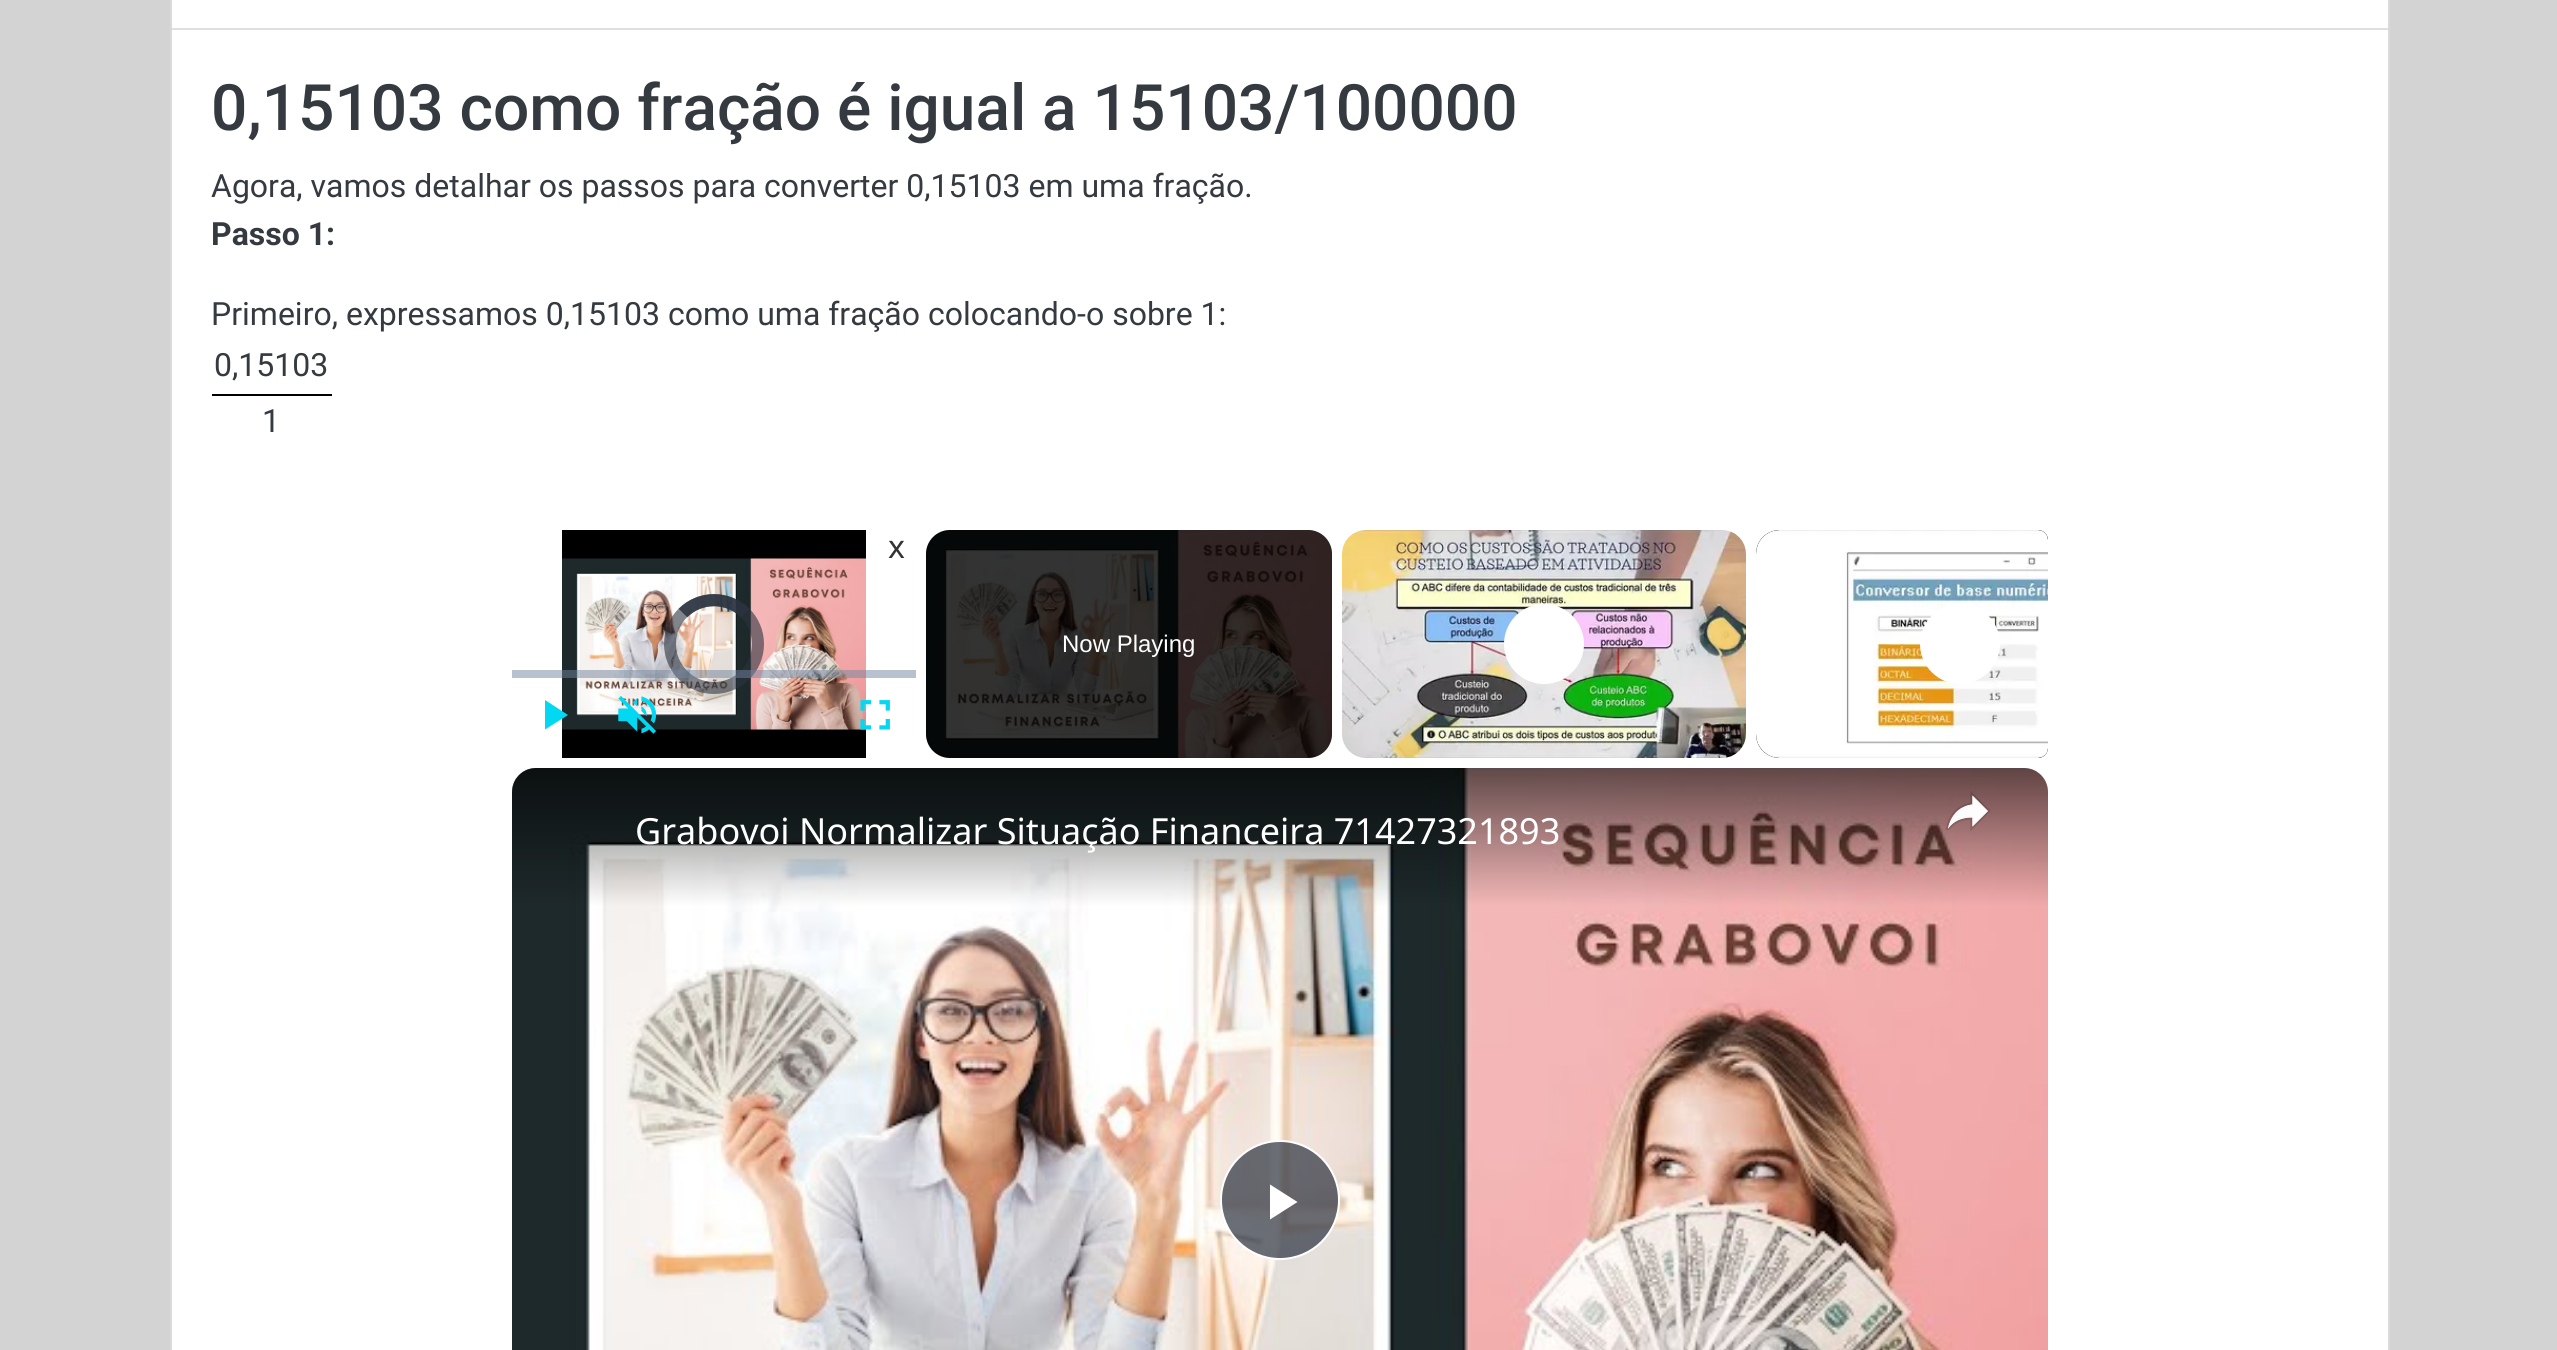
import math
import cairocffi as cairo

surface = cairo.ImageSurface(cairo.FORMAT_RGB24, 2557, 1350)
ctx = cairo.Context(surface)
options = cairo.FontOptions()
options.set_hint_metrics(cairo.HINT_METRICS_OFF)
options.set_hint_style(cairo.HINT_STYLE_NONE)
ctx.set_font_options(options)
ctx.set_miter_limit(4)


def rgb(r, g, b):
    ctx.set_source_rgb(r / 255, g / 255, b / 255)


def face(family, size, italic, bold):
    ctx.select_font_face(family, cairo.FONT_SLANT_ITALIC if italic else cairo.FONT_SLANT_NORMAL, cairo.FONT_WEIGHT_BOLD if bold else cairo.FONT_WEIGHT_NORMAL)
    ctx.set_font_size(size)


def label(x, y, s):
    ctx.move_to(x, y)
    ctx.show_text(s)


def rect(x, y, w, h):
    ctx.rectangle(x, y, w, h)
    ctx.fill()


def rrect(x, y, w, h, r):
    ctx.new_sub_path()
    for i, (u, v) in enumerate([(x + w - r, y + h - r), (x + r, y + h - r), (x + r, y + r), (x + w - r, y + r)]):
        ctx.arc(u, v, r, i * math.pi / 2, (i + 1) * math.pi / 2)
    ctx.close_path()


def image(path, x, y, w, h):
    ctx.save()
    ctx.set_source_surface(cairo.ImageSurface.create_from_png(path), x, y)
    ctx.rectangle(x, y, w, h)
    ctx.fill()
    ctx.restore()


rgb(211, 211, 211)
ctx.paint()
ctx.rectangle(171, -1, 2218, 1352)
rgb(217, 218, 219)
ctx.stroke()
rgb(255, 255, 255)
rect(172, 0, 2216, 28)
rgb(223, 223, 223)
rect(172, 28, 2216, 2)
rgb(255, 255, 255)
rect(172, 30, 2216, 1320)
face('Roboto Medium', 64, 0, 0)
rgb(52, 58, 64)
label(211, 130, '0,15103 como fração é igual a 15103/100000')
face('Roboto', 32, 0, 0)
label(211, 197, 'Agora, vamos detalhar os passos para converter 0,15103 em uma fração.')
face('Roboto', 32, 0, 1)
label(211, 245, 'Passo 1:')
face('Roboto', 32, 0, 0)
label(211, 325, 'Primeiro, expressamos 0,15103 como uma fração colocando-o sobre 1:')
label(214, 376, '0,15103')
rgb(0, 0, 0)
rect(212, 394, 120, 2)
rgb(52, 58, 64)
label(262, 432, '1')
image('image0.png', 562, 530, 304, 228)
ctx.arc(714, 644, 44, 0, 2 * math.pi)
ctx.set_source_rgba(0.169, 0.2, 0.247, 0.59)
ctx.set_line_width(12)
ctx.stroke()
ctx.new_path()
ctx.move_to(683, 613)
ctx.curve_to(700, 596, 728, 596, 745, 613)
ctx.stroke()
ctx.new_path()
ctx.move_to(683, 613)
ctx.curve_to(700, 596, 728, 596, 745, 613)
ctx.stroke()
ctx.set_source_rgba(0.451, 0.522, 0.624, 0.5)
rect(512, 670, 404, 8)
rgb(3, 216, 243)
ctx.new_path()
ctx.move_to(545, 700)
ctx.line_to(545, 729.5)
ctx.line_to(568, 715)
ctx.close_path()
ctx.fill()
image('image1.png', 618, 696, 39, 38)
image('image2.png', 860, 700, 30, 30)
face('Noto Sans', 32, 0, 0)
rgb(51, 51, 51)
label(888, 558, 'x')
rgb(0, 0, 0)
rrect(926, 530, 406, 228, 24)
ctx.fill()
image('image3.png', 926, 530, 406, 228)
face('Liberation Sans', 24, 0, 0)
rgb(255, 255, 255)
label(1062, 652, 'Now Playing')
image('image4.png', 1342, 530, 404, 228)
ctx.new_path()
ctx.move_to(1544, 604)
ctx.curve_to(1522, 604, 1504, 622, 1504, 644)
ctx.curve_to(1504, 666, 1522, 684, 1544, 684)
ctx.curve_to(1566, 684, 1584, 666, 1584, 644)
ctx.curve_to(1584, 622, 1566, 604, 1544, 604)
ctx.close_path()
ctx.fill()
rgb(0, 0, 0)
ctx.new_path()
ctx.move_to(1780, 530)
ctx.line_to(2038, 530)
ctx.curve_to(2043.5, 530, 2048, 534.5, 2048, 540)
ctx.line_to(2048, 748)
ctx.curve_to(2048, 753.5, 2043.5, 758, 2038, 758)
ctx.line_to(1780, 758)
ctx.curve_to(1766.5, 758, 1756, 747.5, 1756, 734)
ctx.line_to(1756, 554)
ctx.curve_to(1756, 540.5, 1766.5, 530, 1780, 530)
ctx.close_path()
ctx.fill()
image('image5.png', 1756, 530, 292, 228)
rgb(255, 255, 255)
ctx.new_path()
ctx.move_to(1960, 604)
ctx.curve_to(1938, 604, 1920, 622, 1920, 644)
ctx.curve_to(1920, 666, 1938, 684, 1960, 684)
ctx.curve_to(1982, 684, 2000, 666, 2000, 644)
ctx.curve_to(2000, 622, 1982, 604, 1960, 604)
ctx.close_path()
ctx.fill()
image('image6.png', 512, 768, 1536, 582)
ctx.set_source_rgba(0.169, 0.2, 0.247, 0.7)
ctx.arc(1280, 1200, 59, 0, 2 * math.pi)
ctx.fill_preserve()
rgb(255, 255, 255)
ctx.set_line_width(2)
ctx.stroke()
ctx.new_path()
ctx.move_to(1270, 1184.5)
ctx.line_to(1270, 1219.5)
ctx.line_to(1297.5, 1202)
ctx.close_path()
ctx.fill()
gradient = cairo.LinearGradient(1280, 768, 1280, 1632)
gradient.add_color_stop_rgba(0, 0, 0, 0, 0.6)
gradient.add_color_stop_rgba(0.16, 0, 0, 0, 0)
gradient.add_color_stop_rgba(0.84, 0, 0, 0, 0)
gradient.add_color_stop_rgba(1, 0, 0, 0, 0.8)
ctx.set_source(gradient)
rrect(512, 768, 1536, 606, 24)
ctx.fill()
face('Noto Sans', 36, 0, 0)
rgb(255, 255, 255)
label(635, 844, 'Grabovoi Normalizar Situação Financeira 71427321893')
image('image7.png', 1946, 791, 45, 40)
surface.write_to_png('render.png')
